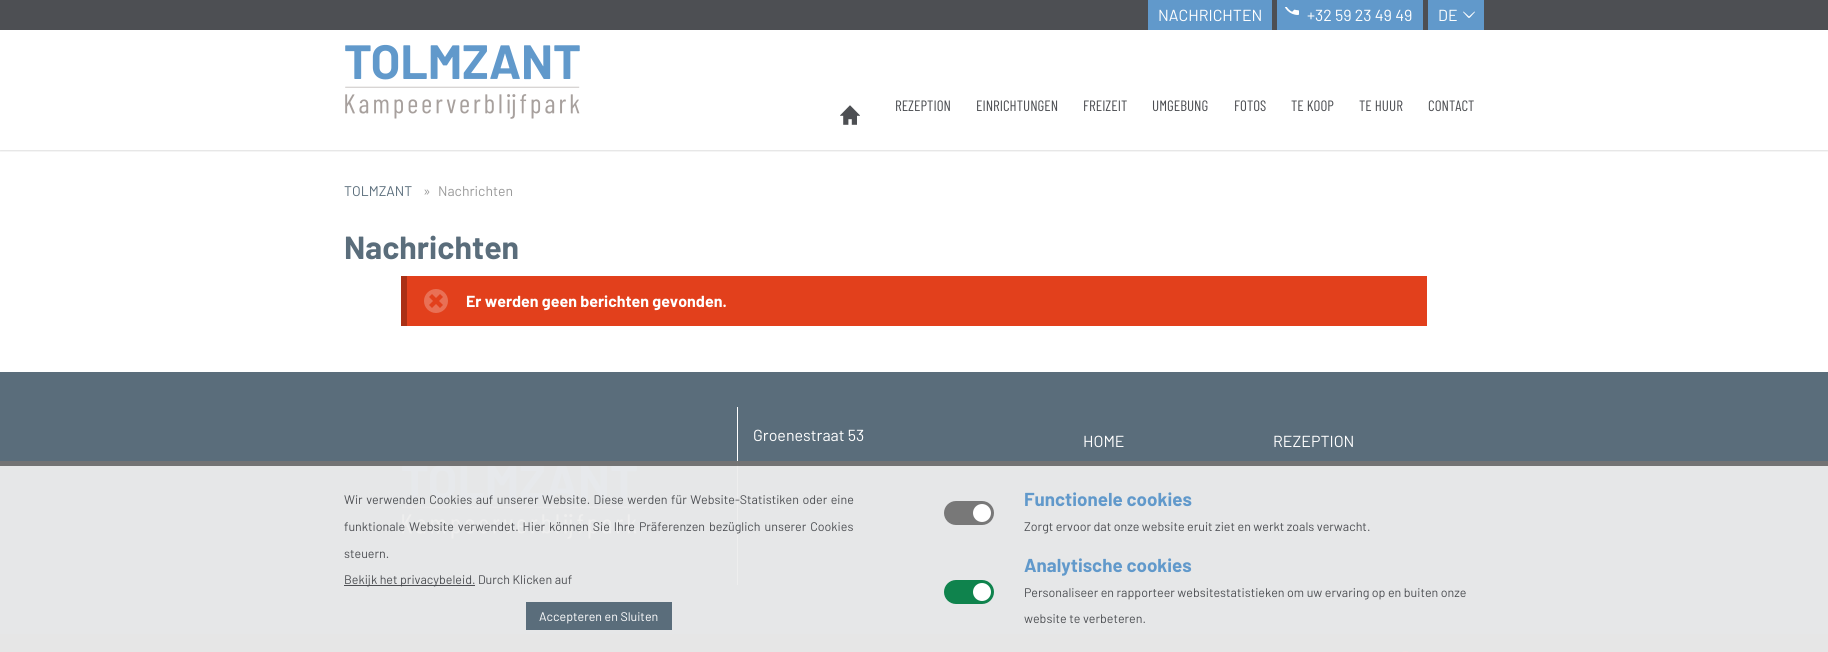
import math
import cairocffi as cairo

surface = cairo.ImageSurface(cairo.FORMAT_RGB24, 1828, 652)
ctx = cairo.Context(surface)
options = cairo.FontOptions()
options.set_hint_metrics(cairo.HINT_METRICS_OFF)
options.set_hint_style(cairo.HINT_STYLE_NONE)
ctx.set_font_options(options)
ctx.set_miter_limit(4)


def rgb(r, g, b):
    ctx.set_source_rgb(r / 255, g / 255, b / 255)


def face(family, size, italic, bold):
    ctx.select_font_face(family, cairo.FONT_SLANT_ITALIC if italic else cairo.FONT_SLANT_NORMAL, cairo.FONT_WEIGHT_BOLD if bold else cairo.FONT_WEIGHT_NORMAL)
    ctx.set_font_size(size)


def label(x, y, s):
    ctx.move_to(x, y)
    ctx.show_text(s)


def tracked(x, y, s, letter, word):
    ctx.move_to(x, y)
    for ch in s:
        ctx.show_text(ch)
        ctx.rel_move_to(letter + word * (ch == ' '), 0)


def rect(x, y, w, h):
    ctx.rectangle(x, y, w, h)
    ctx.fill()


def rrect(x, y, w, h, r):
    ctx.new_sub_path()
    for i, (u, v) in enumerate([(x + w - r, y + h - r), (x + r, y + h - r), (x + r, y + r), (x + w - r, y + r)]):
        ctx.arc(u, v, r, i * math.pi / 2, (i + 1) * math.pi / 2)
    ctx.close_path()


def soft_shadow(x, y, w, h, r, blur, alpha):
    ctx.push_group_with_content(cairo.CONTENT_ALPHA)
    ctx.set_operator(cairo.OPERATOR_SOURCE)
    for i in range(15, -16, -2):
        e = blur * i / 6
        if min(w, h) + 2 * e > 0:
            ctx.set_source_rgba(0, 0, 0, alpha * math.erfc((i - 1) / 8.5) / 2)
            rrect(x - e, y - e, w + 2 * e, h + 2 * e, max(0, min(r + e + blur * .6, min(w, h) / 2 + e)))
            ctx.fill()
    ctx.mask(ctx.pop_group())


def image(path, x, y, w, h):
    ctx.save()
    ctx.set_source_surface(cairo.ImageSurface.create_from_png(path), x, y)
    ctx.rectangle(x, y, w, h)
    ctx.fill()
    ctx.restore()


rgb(255, 255, 255)
ctx.paint()
ctx.save()
ctx.rectangle(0, 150, 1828, 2)
ctx.clip()
rgb(0, 0, 0)
soft_shadow(0, 0, 1828, 150, 0, 1.5, 0.25)
ctx.restore()
rgb(77, 79, 83)
rect(0, 0, 1828, 30)
rgb(97, 153, 203)
rect(1148, 0, 124, 30)
face('Barlow', 16, 0, 0)
rgb(255, 255, 255)
label(1158, 21, 'NACHRICHTEN')
rgb(97, 153, 203)
rect(1277, 0, 146, 30)
image('image0.png', 1284, 7, 15, 8)
rgb(255, 255, 255)
label(1307, 21, '+32 59 23 49 49')
rgb(97, 153, 203)
rect(1428, 0, 56, 30)
rgb(255, 255, 255)
label(1438, 21, 'DE')
ctx.new_path()
ctx.move_to(1463.5, 11.5)
ctx.line_to(1469.5, 17)
ctx.line_to(1468.5, 18)
ctx.line_to(1463, 12)
ctx.close_path()
ctx.fill()
ctx.new_path()
ctx.move_to(1475, 12)
ctx.line_to(1469.5, 18)
ctx.line_to(1468.5, 17)
ctx.line_to(1474.5, 11.5)
ctx.close_path()
ctx.fill()
image('image1.png', 345, 44, 235, 75)
image('image2.png', 840, 105, 20, 20)
face('Barlow Condensed', 15, 0, 0)
rgb(77, 79, 83)
label(895, 111, 'REZEPTION')
label(976, 111, 'EINRICHTUNGEN')
label(1083, 111, 'FREIZEIT')
label(1152, 111, 'UMGEBUNG')
label(1234, 111, 'FOTOS')
label(1291, 111, 'TE KOOP')
label(1359, 111, 'TE HUUR')
label(1428, 111, 'CONTACT')
face('Barlow', 14, 0, 0)
rgb(90, 109, 123)
label(344, 196, 'TOLMZANT')
rgb(153, 153, 153)
label(423, 196, '»')
label(438, 196, 'Nachrichten')
face('Barlow', 32, 0, 1)
rgb(90, 109, 123)
label(344, 259, 'Nachrichten')
rgb(226, 64, 28)
rect(407, 276, 1020, 50)
rgb(170, 48, 21)
rect(401, 276, 6, 50)
rgb(233, 112, 85)
ctx.new_path()
ctx.arc(436, 301, 12, 0, 2 * math.pi)
ctx.fill()
rgb(226, 64, 28)
ctx.new_path()
ctx.move_to(432, 294)
ctx.line_to(443, 305)
ctx.line_to(440, 308)
ctx.line_to(429, 297)
ctx.close_path()
ctx.fill()
ctx.new_path()
ctx.move_to(429, 305)
ctx.line_to(440, 294)
ctx.line_to(443, 297)
ctx.line_to(432, 308)
ctx.close_path()
ctx.fill()
face('Barlow', 16, 0, 1)
rgb(255, 255, 255)
label(466, 307, 'Er werden geen berichten gevonden.')
rgb(90, 109, 123)
rect(0, 372, 1828, 262)
rgb(255, 255, 255)
rect(737, 407, 1, 178)
face('Barlow', 16, 0, 0)
label(753, 441, 'Groenestraat 53')
label(1083, 447, 'HOME')
label(1273, 447, 'REZEPTION')
image('image3.png', 402, 464, 235, 75)
rgb(77, 79, 83)
rect(0, 634, 1828, 18)
rrect(1400, 652, 11, 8, 5.5)
rgb(209, 73, 67)
ctx.stroke()
ctx.set_source_rgba(0.933, 0.933, 0.933, 0.95)
rect(0, 461, 1828, 191)
ctx.set_source_rgba(0, 0, 0, 0.5)
rect(0, 461, 1828, 5)
face('Barlow', 12.45, 0, 0)
rgb(77, 79, 83)
tracked(344, 504, 'Wir verwenden Cookies auf unserer Website. Diese werden für Website-Statistiken oder eine', 0, 1)
tracked(344, 531, 'funktionale Website verwendet. Hier können Sie Ihre Präferenzen bezüglich unserer Cookies', 0, 1.5)
label(344, 558, 'steuern.')
rect(344, 585, 131, 1)
label(344, 584, 'Bekijk het privacybeleid. Durch Klicken auf')
rgb(90, 109, 123)
rect(526, 602, 146, 28)
rgb(255, 255, 255)
label(539, 621, 'Accepteren en Sluiten')
face('Barlow', 18.75, 0, 1)
rgb(97, 153, 203)
label(1024, 506, 'Functionele cookies')
rgb(120, 120, 120)
rrect(944, 501, 50, 24, 12)
ctx.fill()
rgb(255, 255, 255)
ctx.arc(982, 513, 9, 0, 2 * math.pi)
ctx.fill()
face('Barlow', 12.45, 0, 0)
rgb(77, 79, 83)
label(1024, 531, 'Zorgt ervoor dat onze website eruit ziet en werkt zoals verwacht.')
face('Barlow', 18.75, 0, 1)
rgb(97, 153, 203)
label(1024, 572, 'Analytische cookies')
rgb(15, 131, 77)
rrect(944, 580, 50, 24, 12)
ctx.fill()
rgb(255, 255, 255)
ctx.arc(982, 592, 9, 0, 2 * math.pi)
ctx.fill()
face('Barlow', 12.45, 0, 0)
rgb(77, 79, 83)
label(1024, 597, 'Personaliseer en rapporteer websitestatistieken om uw ervaring op en buiten onze')
label(1024, 623, 'website te verbeteren.')
surface.write_to_png('render.png')
